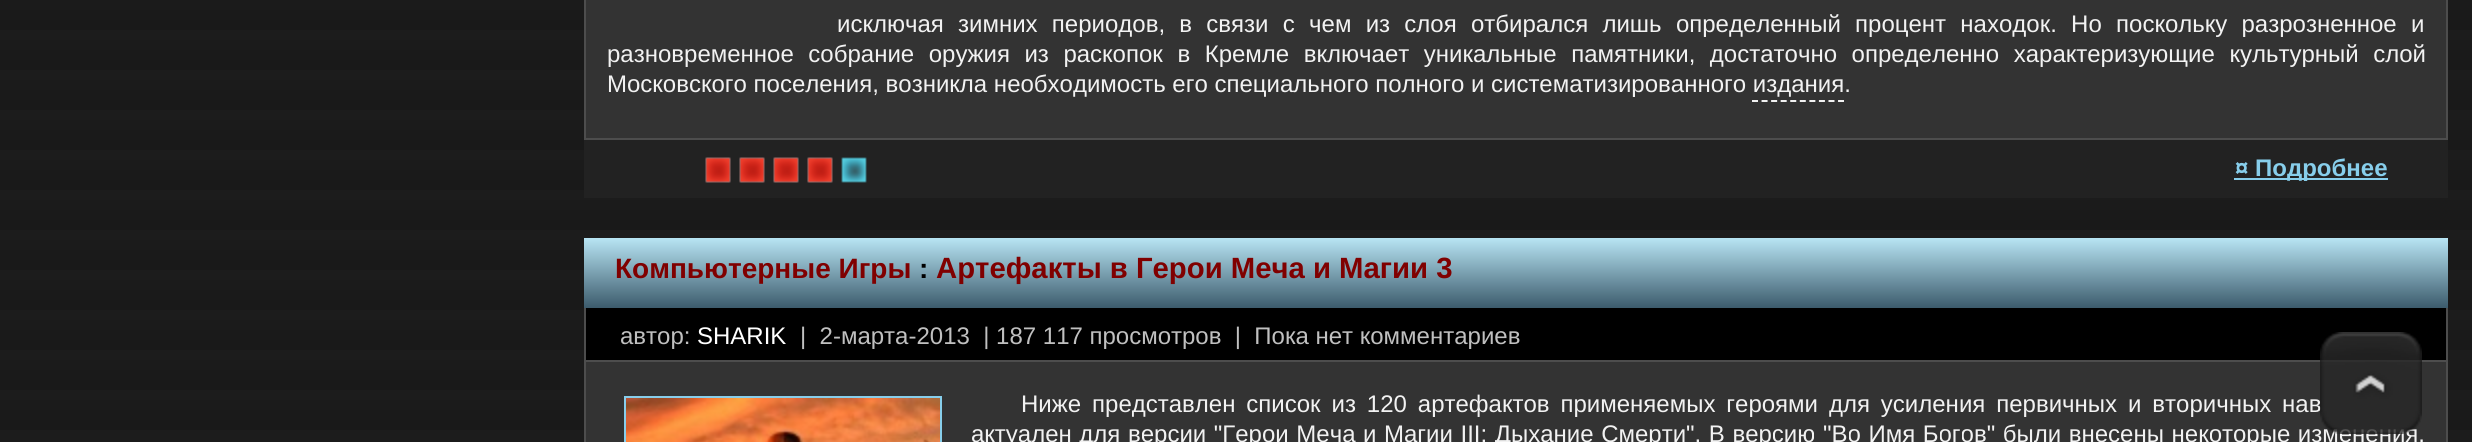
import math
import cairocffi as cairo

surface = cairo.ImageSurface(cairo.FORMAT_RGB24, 2472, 442)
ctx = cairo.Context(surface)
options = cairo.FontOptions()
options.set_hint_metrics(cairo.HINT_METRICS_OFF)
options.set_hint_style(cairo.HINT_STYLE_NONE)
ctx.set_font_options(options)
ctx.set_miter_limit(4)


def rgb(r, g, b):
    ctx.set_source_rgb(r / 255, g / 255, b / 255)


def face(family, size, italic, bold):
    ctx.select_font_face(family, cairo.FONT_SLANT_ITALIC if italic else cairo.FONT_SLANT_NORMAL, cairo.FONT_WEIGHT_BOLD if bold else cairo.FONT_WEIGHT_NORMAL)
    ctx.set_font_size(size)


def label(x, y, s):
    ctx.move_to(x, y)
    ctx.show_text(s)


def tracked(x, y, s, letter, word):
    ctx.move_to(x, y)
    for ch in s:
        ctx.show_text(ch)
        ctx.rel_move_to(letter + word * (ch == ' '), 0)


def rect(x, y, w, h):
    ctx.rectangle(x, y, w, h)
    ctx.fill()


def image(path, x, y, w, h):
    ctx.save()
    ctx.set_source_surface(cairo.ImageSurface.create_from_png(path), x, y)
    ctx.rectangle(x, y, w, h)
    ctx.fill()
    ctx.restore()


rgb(255, 255, 255)
ctx.paint()
gradient = cairo.LinearGradient(20, 0, 20, 40)
gradient.add_color_stop_rgba(0.25, 0.106, 0.106, 0.106, 1)
gradient.add_color_stop_rgba(0.25, 0.102, 0.102, 0.102, 1)
gradient.add_color_stop_rgba(0.5, 0.102, 0.102, 0.102, 1)
gradient.add_color_stop_rgba(0.5, 0.098, 0.098, 0.098, 1)
gradient.add_color_stop_rgba(0.75, 0.098, 0.098, 0.098, 1)
gradient.add_color_stop_rgba(0.75, 0.11, 0.11, 0.11, 1)
gradient.add_color_stop_rgba(1, 0.11, 0.11, 0.11, 1)
ctx.set_source(gradient)
rect(0, 0, 2472, 40)
gradient = cairo.LinearGradient(20, 40, 20, 80)
gradient.add_color_stop_rgba(0.25, 0.106, 0.106, 0.106, 1)
gradient.add_color_stop_rgba(0.25, 0.102, 0.102, 0.102, 1)
gradient.add_color_stop_rgba(0.5, 0.102, 0.102, 0.102, 1)
gradient.add_color_stop_rgba(0.5, 0.098, 0.098, 0.098, 1)
gradient.add_color_stop_rgba(0.75, 0.098, 0.098, 0.098, 1)
gradient.add_color_stop_rgba(0.75, 0.11, 0.11, 0.11, 1)
gradient.add_color_stop_rgba(1, 0.11, 0.11, 0.11, 1)
ctx.set_source(gradient)
rect(0, 40, 2472, 40)
gradient = cairo.LinearGradient(20, 80, 20, 120)
gradient.add_color_stop_rgba(0.25, 0.106, 0.106, 0.106, 1)
gradient.add_color_stop_rgba(0.25, 0.102, 0.102, 0.102, 1)
gradient.add_color_stop_rgba(0.5, 0.102, 0.102, 0.102, 1)
gradient.add_color_stop_rgba(0.5, 0.098, 0.098, 0.098, 1)
gradient.add_color_stop_rgba(0.75, 0.098, 0.098, 0.098, 1)
gradient.add_color_stop_rgba(0.75, 0.11, 0.11, 0.11, 1)
gradient.add_color_stop_rgba(1, 0.11, 0.11, 0.11, 1)
ctx.set_source(gradient)
rect(0, 80, 2472, 40)
gradient = cairo.LinearGradient(20, 120, 20, 160)
gradient.add_color_stop_rgba(0.25, 0.106, 0.106, 0.106, 1)
gradient.add_color_stop_rgba(0.25, 0.102, 0.102, 0.102, 1)
gradient.add_color_stop_rgba(0.5, 0.102, 0.102, 0.102, 1)
gradient.add_color_stop_rgba(0.5, 0.098, 0.098, 0.098, 1)
gradient.add_color_stop_rgba(0.75, 0.098, 0.098, 0.098, 1)
gradient.add_color_stop_rgba(0.75, 0.11, 0.11, 0.11, 1)
gradient.add_color_stop_rgba(1, 0.11, 0.11, 0.11, 1)
ctx.set_source(gradient)
rect(0, 120, 2472, 40)
gradient = cairo.LinearGradient(20, 160, 20, 200)
gradient.add_color_stop_rgba(0.25, 0.106, 0.106, 0.106, 1)
gradient.add_color_stop_rgba(0.25, 0.102, 0.102, 0.102, 1)
gradient.add_color_stop_rgba(0.5, 0.102, 0.102, 0.102, 1)
gradient.add_color_stop_rgba(0.5, 0.098, 0.098, 0.098, 1)
gradient.add_color_stop_rgba(0.75, 0.098, 0.098, 0.098, 1)
gradient.add_color_stop_rgba(0.75, 0.11, 0.11, 0.11, 1)
gradient.add_color_stop_rgba(1, 0.11, 0.11, 0.11, 1)
ctx.set_source(gradient)
rect(0, 160, 2472, 40)
gradient = cairo.LinearGradient(20, 200, 20, 240)
gradient.add_color_stop_rgba(0.25, 0.106, 0.106, 0.106, 1)
gradient.add_color_stop_rgba(0.25, 0.102, 0.102, 0.102, 1)
gradient.add_color_stop_rgba(0.5, 0.102, 0.102, 0.102, 1)
gradient.add_color_stop_rgba(0.5, 0.098, 0.098, 0.098, 1)
gradient.add_color_stop_rgba(0.75, 0.098, 0.098, 0.098, 1)
gradient.add_color_stop_rgba(0.75, 0.11, 0.11, 0.11, 1)
gradient.add_color_stop_rgba(1, 0.11, 0.11, 0.11, 1)
ctx.set_source(gradient)
rect(0, 200, 2472, 40)
gradient = cairo.LinearGradient(20, 240, 20, 280)
gradient.add_color_stop_rgba(0.25, 0.106, 0.106, 0.106, 1)
gradient.add_color_stop_rgba(0.25, 0.102, 0.102, 0.102, 1)
gradient.add_color_stop_rgba(0.5, 0.102, 0.102, 0.102, 1)
gradient.add_color_stop_rgba(0.5, 0.098, 0.098, 0.098, 1)
gradient.add_color_stop_rgba(0.75, 0.098, 0.098, 0.098, 1)
gradient.add_color_stop_rgba(0.75, 0.11, 0.11, 0.11, 1)
gradient.add_color_stop_rgba(1, 0.11, 0.11, 0.11, 1)
ctx.set_source(gradient)
rect(0, 240, 2472, 40)
gradient = cairo.LinearGradient(20, 280, 20, 320)
gradient.add_color_stop_rgba(0.25, 0.106, 0.106, 0.106, 1)
gradient.add_color_stop_rgba(0.25, 0.102, 0.102, 0.102, 1)
gradient.add_color_stop_rgba(0.5, 0.102, 0.102, 0.102, 1)
gradient.add_color_stop_rgba(0.5, 0.098, 0.098, 0.098, 1)
gradient.add_color_stop_rgba(0.75, 0.098, 0.098, 0.098, 1)
gradient.add_color_stop_rgba(0.75, 0.11, 0.11, 0.11, 1)
gradient.add_color_stop_rgba(1, 0.11, 0.11, 0.11, 1)
ctx.set_source(gradient)
rect(0, 280, 2472, 40)
gradient = cairo.LinearGradient(20, 320, 20, 360)
gradient.add_color_stop_rgba(0.25, 0.106, 0.106, 0.106, 1)
gradient.add_color_stop_rgba(0.25, 0.102, 0.102, 0.102, 1)
gradient.add_color_stop_rgba(0.5, 0.102, 0.102, 0.102, 1)
gradient.add_color_stop_rgba(0.5, 0.098, 0.098, 0.098, 1)
gradient.add_color_stop_rgba(0.75, 0.098, 0.098, 0.098, 1)
gradient.add_color_stop_rgba(0.75, 0.11, 0.11, 0.11, 1)
gradient.add_color_stop_rgba(1, 0.11, 0.11, 0.11, 1)
ctx.set_source(gradient)
rect(0, 320, 2472, 40)
gradient = cairo.LinearGradient(20, 360, 20, 400)
gradient.add_color_stop_rgba(0.25, 0.106, 0.106, 0.106, 1)
gradient.add_color_stop_rgba(0.25, 0.102, 0.102, 0.102, 1)
gradient.add_color_stop_rgba(0.5, 0.102, 0.102, 0.102, 1)
gradient.add_color_stop_rgba(0.5, 0.098, 0.098, 0.098, 1)
gradient.add_color_stop_rgba(0.75, 0.098, 0.098, 0.098, 1)
gradient.add_color_stop_rgba(0.75, 0.11, 0.11, 0.11, 1)
gradient.add_color_stop_rgba(1, 0.11, 0.11, 0.11, 1)
ctx.set_source(gradient)
rect(0, 360, 2472, 40)
gradient = cairo.LinearGradient(20, 400, 20, 440)
gradient.add_color_stop_rgba(0.25, 0.106, 0.106, 0.106, 1)
gradient.add_color_stop_rgba(0.25, 0.102, 0.102, 0.102, 1)
gradient.add_color_stop_rgba(0.5, 0.102, 0.102, 0.102, 1)
gradient.add_color_stop_rgba(0.5, 0.098, 0.098, 0.098, 1)
gradient.add_color_stop_rgba(0.75, 0.098, 0.098, 0.098, 1)
gradient.add_color_stop_rgba(0.75, 0.11, 0.11, 0.11, 1)
gradient.add_color_stop_rgba(1, 0.11, 0.11, 0.11, 1)
ctx.set_source(gradient)
rect(0, 400, 2472, 40)
gradient = cairo.LinearGradient(20, 440, 20, 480)
gradient.add_color_stop_rgba(0.25, 0.106, 0.106, 0.106, 1)
gradient.add_color_stop_rgba(0.25, 0.102, 0.102, 0.102, 1)
gradient.add_color_stop_rgba(0.5, 0.102, 0.102, 0.102, 1)
gradient.add_color_stop_rgba(0.5, 0.098, 0.098, 0.098, 1)
gradient.add_color_stop_rgba(0.75, 0.098, 0.098, 0.098, 1)
gradient.add_color_stop_rgba(0.75, 0.11, 0.11, 0.11, 1)
gradient.add_color_stop_rgba(1, 0.11, 0.11, 0.11, 1)
ctx.set_source(gradient)
rect(0, 440, 2472, 2)
rgb(51, 51, 51)
rect(586, 0, 1860, 138)
rgb(77, 77, 77)
rect(2446, 0, 2, 138)
rect(584, 0, 2, 138)
face('Liberation Sans', 24, 0, 0)
rgb(242, 242, 242)
tracked(837, 32, 'исключая зимних периодов, в связи с чем из слоя отбирался лишь определенный процент находок. Но поскольку разрозненное и', 0, 7.6)
tracked(607, 62, 'разновременное собрание оружия из раскопок в Кремле включает уникальные памятники, достаточно определенно характеризующие культурный слой', 0, 7.9)
label(607, 92, 'Московского поселения, возникла необходимость его специального полного и систематизированного издания.')
ctx.new_path()
ctx.move_to(1752, 101)
ctx.line_to(1844, 101)
ctx.set_dash([6, 3.56])
ctx.stroke()
rgb(34, 34, 34)
rect(584, 140, 1864, 58)
rgb(77, 77, 77)
rect(584, 138, 1864, 2)
image('image0.png', 705, 157, 162, 26)
image('image1.png', 705, 157, 128, 26)
rgb(135, 206, 235)
rect(2234, 178, 154, 2)
face('Liberation Sans', 24, 0, 1)
label(2235, 176, '¤ Подробнее')
gradient = cairo.LinearGradient(1516, 238, 1516, 308)
gradient.add_color_stop_rgba(0, 0.722, 0.898, 0.957, 1)
gradient.add_color_stop_rgba(1, 0.235, 0.357, 0.424, 1)
ctx.set_source(gradient)
rect(584, 238, 1864, 70)
face('Liberation Sans', 28, 0, 1)
rgb(128, 0, 0)
label(615, 278, 'Компьютерные Игры')
rgb(0, 0, 0)
label(919, 278, ':')
face('Liberation Sans', 29.3, 0, 1)
rgb(128, 0, 0)
label(936, 278, 'Артефакты в Герои Меча и Магии 3')
rgb(0, 0, 0)
rect(586, 308, 1860, 52)
rgb(77, 77, 77)
rect(2446, 308, 2, 134)
rect(584, 360, 1864, 2)
rect(584, 308, 2, 134)
face('Liberation Sans', 24, 0, 0)
rgb(192, 192, 192)
label(620, 344, 'автор:')
rgb(255, 255, 255)
label(697, 344, 'SHARIK')
rgb(192, 192, 192)
label(800, 344, '|  2-марта-2013  | 187 117 просмотров  |  Пока нет комментариев')
rgb(51, 51, 51)
rect(586, 362, 1860, 80)
image('image2.png', 626, 398, 314, 44)
ctx.rectangle(625, 397, 316, 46)
rgb(135, 206, 235)
ctx.set_dash([])
ctx.stroke()
rgb(242, 242, 242)
tracked(1021, 412, 'Ниже представлен список из 120 артефактов применяемых героями для усиления первичных и вторичных нав', 0, 4.25)
tracked(971, 442, 'актуален для версии "Герои Меча и Магии III: Дыхание Смерти". В версию', 0, 0.9)
tracked(1823, 442, '"Во Имя Богов" были внесены некоторые изменения.', 0, 0.9)
image('image3.png', 2320, 332, 102, 102)
surface.write_to_png('render.png')
